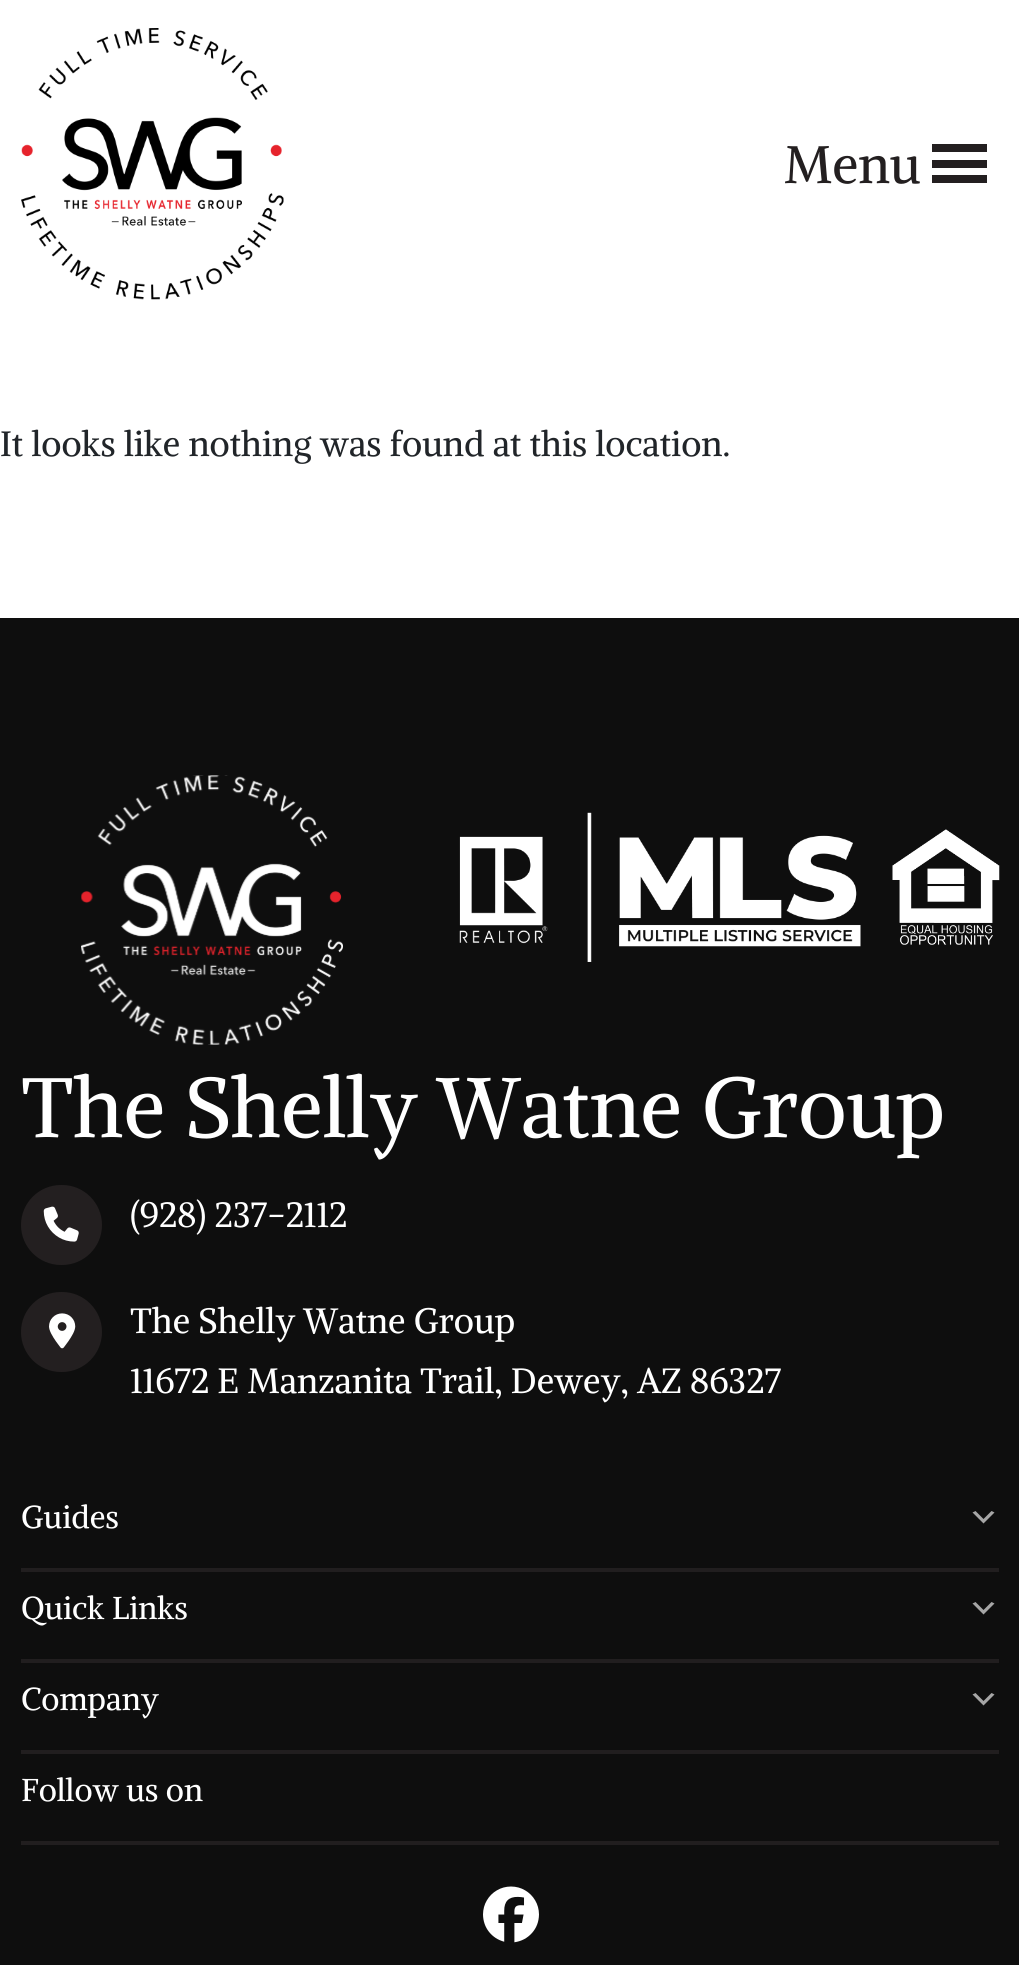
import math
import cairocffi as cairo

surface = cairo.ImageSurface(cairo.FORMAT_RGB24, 1019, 1965)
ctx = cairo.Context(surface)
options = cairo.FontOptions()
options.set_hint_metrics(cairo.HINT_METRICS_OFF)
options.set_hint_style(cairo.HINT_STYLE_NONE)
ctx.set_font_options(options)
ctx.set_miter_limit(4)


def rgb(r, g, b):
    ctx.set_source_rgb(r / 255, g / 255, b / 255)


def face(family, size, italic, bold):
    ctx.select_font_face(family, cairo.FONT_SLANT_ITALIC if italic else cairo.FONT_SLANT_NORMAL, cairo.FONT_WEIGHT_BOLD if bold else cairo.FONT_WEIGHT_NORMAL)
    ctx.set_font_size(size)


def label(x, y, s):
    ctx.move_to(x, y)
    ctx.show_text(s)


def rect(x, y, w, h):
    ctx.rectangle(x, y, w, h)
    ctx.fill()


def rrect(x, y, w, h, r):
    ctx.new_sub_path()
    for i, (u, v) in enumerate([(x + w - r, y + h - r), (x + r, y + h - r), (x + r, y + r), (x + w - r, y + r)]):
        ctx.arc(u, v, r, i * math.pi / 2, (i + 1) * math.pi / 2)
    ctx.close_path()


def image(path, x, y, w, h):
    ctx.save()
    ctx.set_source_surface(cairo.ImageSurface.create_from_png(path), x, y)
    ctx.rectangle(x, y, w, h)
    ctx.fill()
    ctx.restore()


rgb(255, 255, 255)
ctx.paint()
image('image0.png', 21, 28, 263, 272)
face('Alike', 52.5, 0, 0)
rgb(35, 31, 32)
label(784, 183, 'Menu')
ctx.new_path()
ctx.move_to(932, 183)
ctx.line_to(987, 183)
ctx.line_to(987, 175)
ctx.line_to(932, 175)
ctx.close_path()
ctx.move_to(932, 144)
ctx.line_to(932, 152)
ctx.line_to(987, 152)
ctx.line_to(987, 144)
ctx.close_path()
ctx.move_to(932, 168)
ctx.line_to(987, 168)
ctx.line_to(987, 160)
ctx.line_to(932, 160)
ctx.close_path()
ctx.fill()
face('Alike', 35, 0, 0)
rgb(33, 37, 41)
label(0, 456, 'It looks like nothing was found at this location.')
rgb(14, 14, 14)
rect(0, 618, 1019, 1347)
image('image1.png', 81, 775, 262, 270)
image('image2.png', 459, 812, 402, 150)
image('image3.png', 892, 829, 108, 116)
face('Alike', 84, 0, 0)
rgb(255, 255, 255)
label(21, 1137, 'The Shelly Watne Group')
rgb(35, 31, 32)
rrect(21, 1185, 81, 80, 40)
ctx.fill()
image('image4.png', 43, 1206, 36, 36)
face('Alike', 35, 0, 0)
rgb(255, 255, 255)
label(130, 1227, '(928) 237-2112')
rgb(35, 31, 32)
rrect(21, 1292, 81, 80, 40)
ctx.fill()
image('image5.png', 49, 1313, 27, 36)
rgb(255, 255, 255)
label(130, 1333, 'The Shelly Watne Group')
label(130, 1393, '11672 E Manzanita Trail, Dewey, AZ 86327')
rgb(33, 30, 31)
rect(21, 1568, 978, 4)
face('Alike', 31.5, 0, 0)
rgb(255, 255, 255)
label(21, 1528, 'Guides')
rgb(166, 166, 166)
ctx.new_path()
ctx.move_to(975.5, 1511)
ctx.line_to(983.5, 1519)
ctx.line_to(991.5, 1511)
ctx.line_to(994.5, 1512.5)
ctx.line_to(983.5, 1523.5)
ctx.line_to(972.5, 1512.5)
ctx.close_path()
ctx.fill()
rgb(33, 30, 31)
rect(21, 1659, 978, 4)
rgb(255, 255, 255)
label(21, 1619, 'Quick Links')
rgb(166, 166, 166)
ctx.new_path()
ctx.move_to(975.5, 1602)
ctx.line_to(983.5, 1610)
ctx.line_to(991.5, 1602)
ctx.line_to(994.5, 1603.5)
ctx.line_to(983.5, 1614.5)
ctx.line_to(972.5, 1603.5)
ctx.close_path()
ctx.fill()
rgb(33, 30, 31)
rect(21, 1750, 978, 4)
rgb(255, 255, 255)
label(21, 1710, 'Company')
rgb(166, 166, 166)
ctx.new_path()
ctx.move_to(975.5, 1693)
ctx.line_to(983.5, 1701)
ctx.line_to(991.5, 1693)
ctx.line_to(994.5, 1694.5)
ctx.line_to(983.5, 1705.5)
ctx.line_to(972.5, 1694.5)
ctx.close_path()
ctx.fill()
rgb(33, 30, 31)
rect(21, 1841, 978, 4)
rgb(255, 255, 255)
label(21, 1801, 'Follow us on')
image('image6.png', 483, 1886, 56, 57)
surface.write_to_png('render.png')
